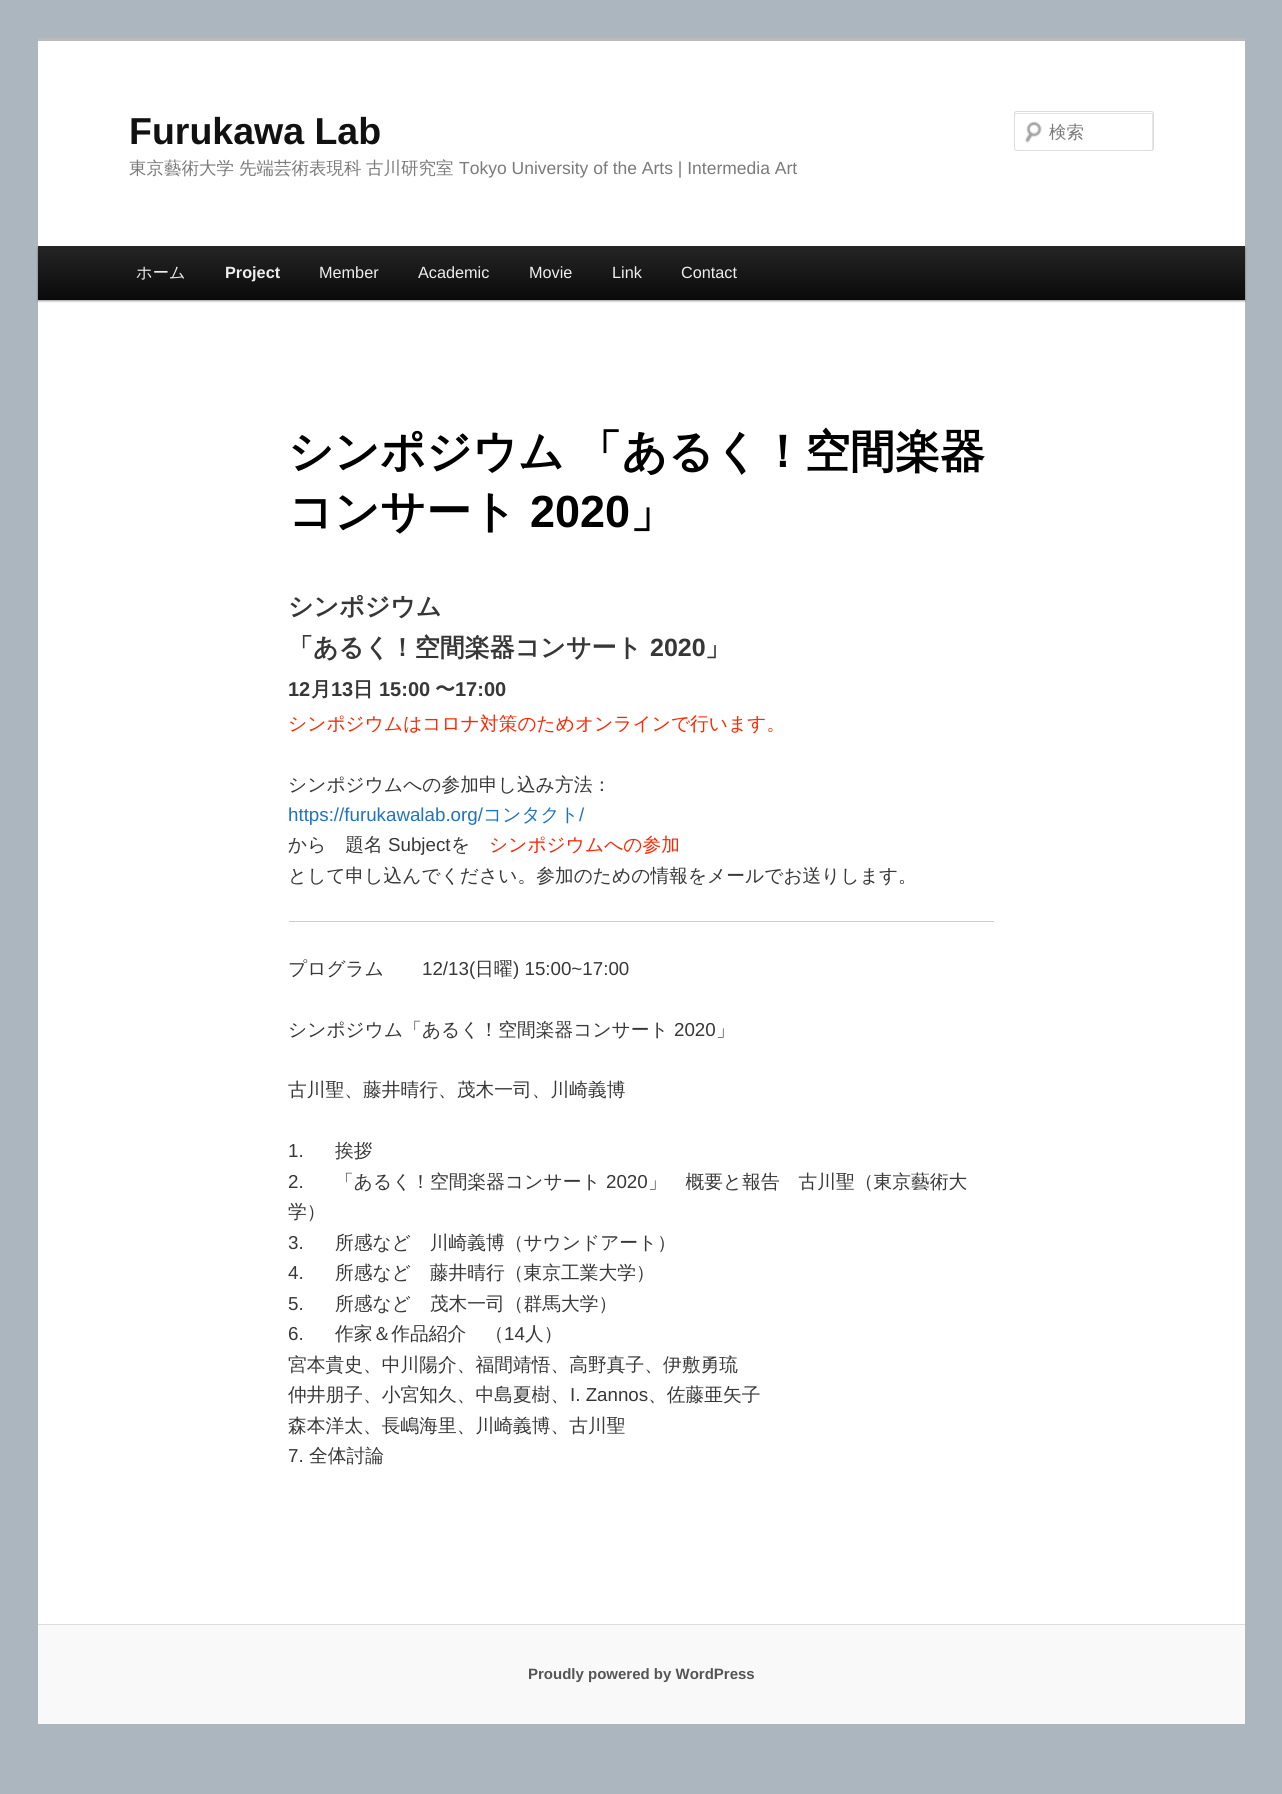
import math
import cairocffi as cairo

surface = cairo.ImageSurface(cairo.FORMAT_RGB24, 1282, 1794)
ctx = cairo.Context(surface)
options = cairo.FontOptions()
options.set_hint_metrics(cairo.HINT_METRICS_OFF)
options.set_hint_style(cairo.HINT_STYLE_NONE)
ctx.set_font_options(options)
ctx.set_miter_limit(4)


def rgb(r, g, b):
    ctx.set_source_rgb(r / 255, g / 255, b / 255)


def face(family, size, italic, bold):
    ctx.select_font_face(family, cairo.FONT_SLANT_ITALIC if italic else cairo.FONT_SLANT_NORMAL, cairo.FONT_WEIGHT_BOLD if bold else cairo.FONT_WEIGHT_NORMAL)
    ctx.set_font_size(size)


def label(x, y, s):
    ctx.move_to(x, y)
    ctx.show_text(s)


def tracked(x, y, s, letter, word):
    ctx.move_to(x, y)
    for ch in s:
        ctx.show_text(ch)
        ctx.rel_move_to(letter + word * (ch == ' '), 0)


def rect(x, y, w, h):
    ctx.rectangle(x, y, w, h)
    ctx.fill()


def rrect(x, y, w, h, r):
    ctx.new_sub_path()
    for i, (u, v) in enumerate([(x + w - r, y + h - r), (x + r, y + h - r), (x + r, y + r), (x + w - r, y + r)]):
        ctx.arc(u, v, r, i * math.pi / 2, (i + 1) * math.pi / 2)
    ctx.close_path()


def soft_shadow(x, y, w, h, r, blur, alpha):
    ctx.push_group_with_content(cairo.CONTENT_ALPHA)
    ctx.set_operator(cairo.OPERATOR_SOURCE)
    for i in range(15, -16, -2):
        e = blur * i / 6
        if min(w, h) + 2 * e > 0:
            ctx.set_source_rgba(0, 0, 0, alpha * math.erfc((i - 1) / 8.5) / 2)
            rrect(x - e, y - e, w + 2 * e, h + 2 * e, max(0, min(r + e + blur * .6, min(w, h) / 2 + e)))
            ctx.fill()
    ctx.mask(ctx.pop_group())


def image(path, x, y, w, h):
    ctx.save()
    ctx.set_source_surface(cairo.ImageSurface.create_from_png(path), x, y)
    ctx.rectangle(x, y, w, h)
    ctx.fill()
    ctx.restore()


rgb(172, 182, 191)
ctx.paint()
rgb(255, 255, 255)
rect(38, 41, 1207, 1583)
rgb(187, 187, 187)
rect(38, 38, 1207, 3)
face('Liberation Sans', 37.5, 0, 1)
rgb(17, 17, 17)
label(129, 144, 'Furukawa Lab')
face('WenQuanYi Zen Hei Medium', 17.5, 0, 0)
rgb(122, 122, 122)
label(129, 174, '東京藝術大学')
label(239, 174, '先端芸術表現科')
label(366, 174, '古川研究室')
face('Liberation Sans', 17.5, 0, 0)
label(459, 174, 'Tokyo University of the Arts | Intermedia Art')
image('image0.png', 1025, 121, 17, 22)
rgb(230, 230, 230)
ctx.new_path()
ctx.move_to(1016, 114)
ctx.line_to(1151, 114)
ctx.curve_to(1152, 114, 1152, 114, 1152, 115)
ctx.line_to(1152, 150)
ctx.curve_to(1153, 150, 1153, 150, 1153, 149)
ctx.line_to(1153, 114)
ctx.curve_to(1153, 113, 1153, 113, 1152, 113)
ctx.line_to(1016, 113)
ctx.curve_to(1015, 113, 1015, 113, 1015, 114)
ctx.line_to(1015, 115)
ctx.close_path()
ctx.fill()
rrect(1014.5, 111.5, 139, 39, 2)
rgb(221, 221, 221)
ctx.set_line_width(1)
ctx.stroke()
face('WenQuanYi Zen Hei Medium', 17.5, 0, 0)
rgb(122, 122, 122)
label(1049, 138, '検索')
rgb(0, 0, 0)
soft_shadow(38, 248, 1207, 53, 0, 1, 0.4)
gradient = cairo.LinearGradient(641, 246, 641, 300)
gradient.add_color_stop_rgba(0, 0.145, 0.145, 0.145, 1)
gradient.add_color_stop_rgba(1, 0.039, 0.039, 0.039, 1)
ctx.set_source(gradient)
rect(38, 246, 1207, 54)
face('WenQuanYi Zen Hei Medium', 16.25, 0, 0)
rgb(238, 238, 238)
label(136, 278, 'ホーム')
face('Liberation Sans', 16.25, 0, 1)
label(225, 278, 'Project')
face('Liberation Sans', 16.25, 0, 0)
label(319, 278, 'Member')
label(418, 278, 'Academic')
label(529, 278, 'Movie')
label(612, 278, 'Link')
label(681, 278, 'Contact')
face('WenQuanYi Zen Hei', 45, 0, 1)
rgb(0, 0, 0)
tracked(288, 467, 'シンポジウム 「あるく！空間楽器', 0, -1)
label(288, 527, 'コンサート')
face('Liberation Sans', 45, 0, 1)
label(530, 527, '2020')
face('WenQuanYi Zen Hei', 45, 0, 1)
label(630, 527, '」')
face('WenQuanYi Zen Hei', 25, 0, 1)
rgb(55, 55, 55)
label(288, 615, 'シンポジウム')
label(288, 656, '「あるく！空間楽器コンサート')
face('Liberation Sans', 25, 0, 1)
label(650, 656, '2020')
face('WenQuanYi Zen Hei', 25, 0, 1)
label(705, 656, '」')
face('Liberation Sans', 20, 0, 1)
label(288, 696, '12')
face('WenQuanYi Zen Hei', 20, 0, 1)
label(311, 696, '月')
face('Liberation Sans', 20, 0, 1)
label(331, 696, '13')
face('WenQuanYi Zen Hei', 20, 0, 1)
label(353, 696, '日')
face('Liberation Sans', 20, 0, 1)
label(379, 696, '15:00')
face('WenQuanYi Zen Hei', 20, 0, 1)
label(435, 696, '〜')
face('Liberation Sans', 20, 0, 1)
label(455, 696, '17:00')
face('WenQuanYi Zen Hei Medium', 18.75, 0, 0)
rgb(255, 38, 0)
label(288, 730, 'シンポジウムはコロナ対策のためオンラインで行います。')
rgb(55, 55, 55)
label(288, 791, 'シンポジウムへの参加申し込み方法：')
face('Liberation Sans', 18.75, 0, 0)
rgb(30, 115, 190)
label(288, 821, 'https://furukawalab.org/')
face('WenQuanYi Zen Hei Medium', 18.75, 0, 0)
label(483, 821, 'コンタクト')
face('Liberation Sans', 18.75, 0, 0)
label(579, 821, '/')
face('WenQuanYi Zen Hei Medium', 18.75, 0, 0)
rgb(55, 55, 55)
label(288, 851, 'から　題名')
face('Liberation Sans', 18.75, 0, 0)
label(388, 851, 'Subject')
face('WenQuanYi Zen Hei Medium', 18.75, 0, 0)
label(451, 851, 'を')
rgb(255, 38, 0)
label(489, 851, 'シンポジウムへの参加')
rgb(55, 55, 55)
label(288, 882, 'として申し込んでください。参加のための情報をメールでお送りします。')
rgb(204, 204, 204)
rect(289, 921, 705, 1)
rgb(55, 55, 55)
label(288, 975, 'プログラム')
face('Liberation Sans', 18.75, 0, 0)
label(422, 975, '12/13(')
face('WenQuanYi Zen Hei Medium', 18.75, 0, 0)
label(475, 975, '日曜')
face('Liberation Sans', 18.75, 0, 0)
label(513, 975, ') 15:00~17:00')
face('WenQuanYi Zen Hei Medium', 18.75, 0, 0)
label(288, 1036, 'シンポジウム「あるく！空間楽器コンサート')
face('Liberation Sans', 18.75, 0, 0)
label(674, 1036, '2020')
face('WenQuanYi Zen Hei Medium', 18.75, 0, 0)
label(716, 1036, '」')
label(288, 1096, '古川聖、藤井晴行、茂木一司、川崎義博')
face('Liberation Sans', 18.75, 0, 0)
label(288, 1157, '1.')
face('WenQuanYi Zen Hei Medium', 18.75, 0, 0)
label(335, 1157, '挨拶')
face('Liberation Sans', 18.75, 0, 0)
label(288, 1188, '2.')
face('WenQuanYi Zen Hei Medium', 18.75, 0, 0)
label(335, 1188, '「あるく！空間楽器コンサート')
face('Liberation Sans', 18.75, 0, 0)
label(606, 1188, '2020')
face('WenQuanYi Zen Hei Medium', 18.75, 0, 0)
label(648, 1188, '」　概要と報告　古川聖（東京藝術大')
label(288, 1218, '学）')
face('Liberation Sans', 18.75, 0, 0)
label(288, 1249, '3.')
face('WenQuanYi Zen Hei Medium', 18.75, 0, 0)
label(335, 1249, '所感など　川崎義博（サウンドアート）')
face('Liberation Sans', 18.75, 0, 0)
label(288, 1279, '4.')
face('WenQuanYi Zen Hei Medium', 18.75, 0, 0)
label(335, 1279, '所感など　藤井晴行（東京工業大学）')
face('Liberation Sans', 18.75, 0, 0)
label(288, 1310, '5.')
face('WenQuanYi Zen Hei Medium', 18.75, 0, 0)
label(335, 1310, '所感など　茂木一司（群馬大学）')
face('Liberation Sans', 18.75, 0, 0)
label(288, 1340, '6.')
face('WenQuanYi Zen Hei Medium', 18.75, 0, 0)
label(335, 1340, '作家＆作品紹介　（')
face('Liberation Sans', 18.75, 0, 0)
label(504, 1340, '14')
face('WenQuanYi Zen Hei Medium', 18.75, 0, 0)
label(525, 1340, '人）')
label(288, 1371, '宮本貴史、中川陽介、福間靖悟、高野真子、伊敷勇琉')
label(288, 1401, '仲井朋子、小宮知久、中島夏樹、')
face('Liberation Sans', 18.75, 0, 0)
label(570, 1401, 'I. Zannos')
face('WenQuanYi Zen Hei Medium', 18.75, 0, 0)
label(648, 1401, '、佐藤亜矢子')
label(288, 1432, '森本洋太、長嶋海里、川崎義博、古川聖')
face('Liberation Sans', 18.75, 0, 0)
label(288, 1462, '7.')
face('WenQuanYi Zen Hei Medium', 18.75, 0, 0)
label(309, 1462, '全体討論')
rgb(249, 249, 249)
rect(38, 1625, 1207, 99)
rgb(221, 221, 221)
rect(38, 1624, 1207, 1)
face('Liberation Sans', 15, 0, 1)
rgb(85, 85, 85)
label(528, 1679, 'Proudly powered by WordPress')
surface.write_to_png('render.png')
